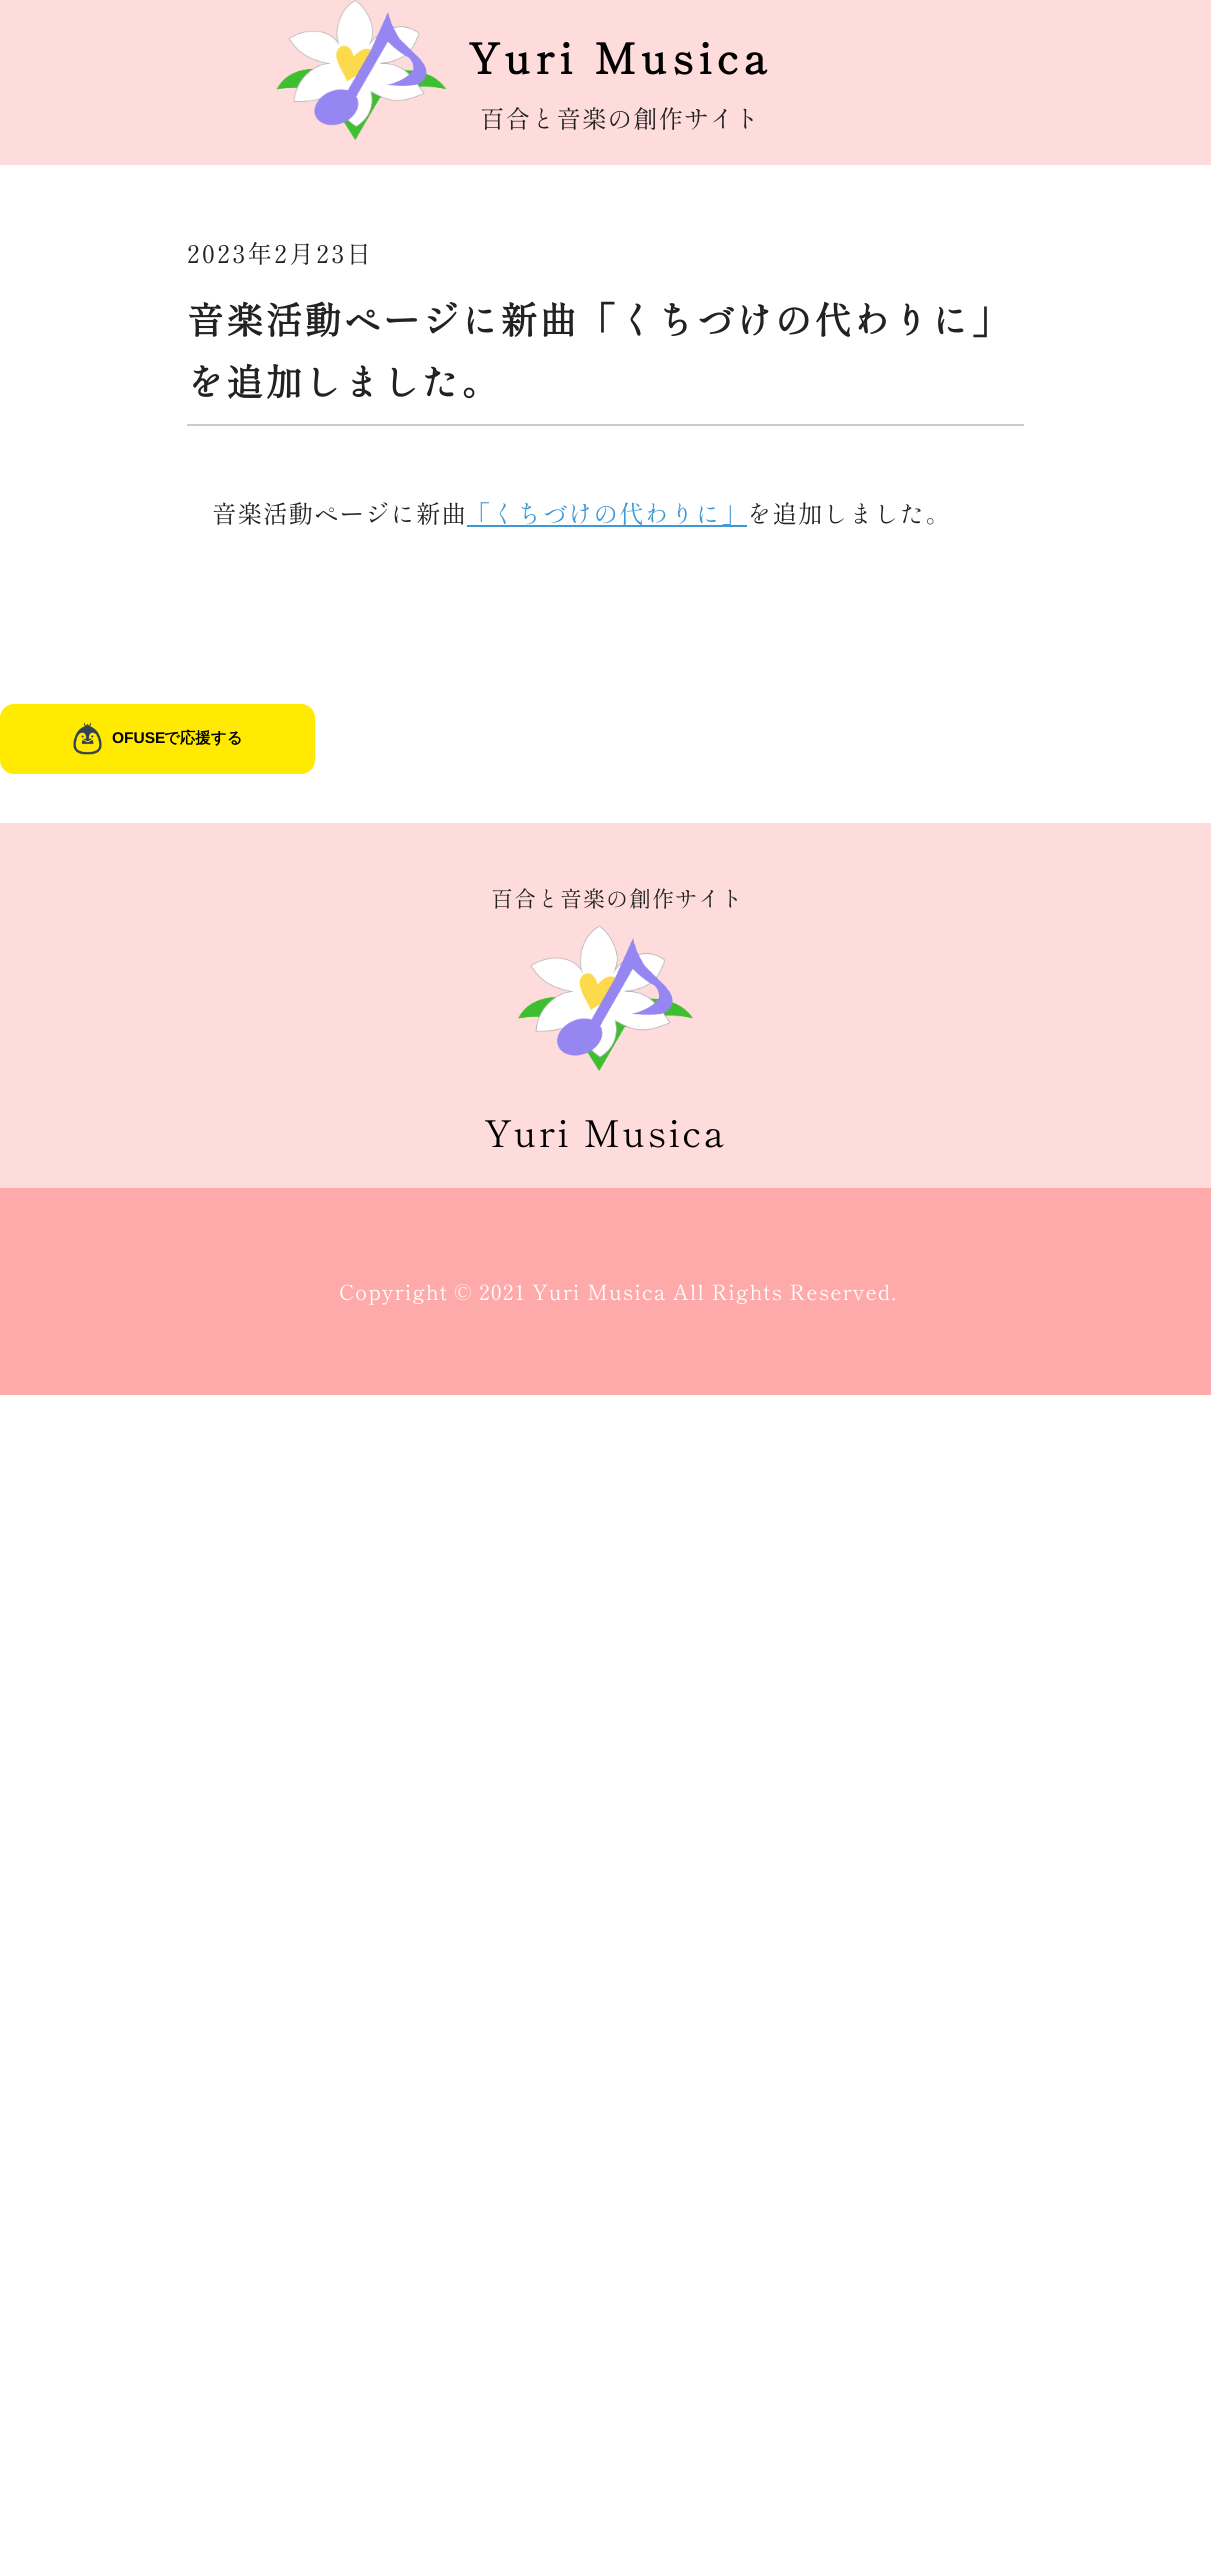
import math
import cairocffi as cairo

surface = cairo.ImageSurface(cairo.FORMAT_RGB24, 1211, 2561)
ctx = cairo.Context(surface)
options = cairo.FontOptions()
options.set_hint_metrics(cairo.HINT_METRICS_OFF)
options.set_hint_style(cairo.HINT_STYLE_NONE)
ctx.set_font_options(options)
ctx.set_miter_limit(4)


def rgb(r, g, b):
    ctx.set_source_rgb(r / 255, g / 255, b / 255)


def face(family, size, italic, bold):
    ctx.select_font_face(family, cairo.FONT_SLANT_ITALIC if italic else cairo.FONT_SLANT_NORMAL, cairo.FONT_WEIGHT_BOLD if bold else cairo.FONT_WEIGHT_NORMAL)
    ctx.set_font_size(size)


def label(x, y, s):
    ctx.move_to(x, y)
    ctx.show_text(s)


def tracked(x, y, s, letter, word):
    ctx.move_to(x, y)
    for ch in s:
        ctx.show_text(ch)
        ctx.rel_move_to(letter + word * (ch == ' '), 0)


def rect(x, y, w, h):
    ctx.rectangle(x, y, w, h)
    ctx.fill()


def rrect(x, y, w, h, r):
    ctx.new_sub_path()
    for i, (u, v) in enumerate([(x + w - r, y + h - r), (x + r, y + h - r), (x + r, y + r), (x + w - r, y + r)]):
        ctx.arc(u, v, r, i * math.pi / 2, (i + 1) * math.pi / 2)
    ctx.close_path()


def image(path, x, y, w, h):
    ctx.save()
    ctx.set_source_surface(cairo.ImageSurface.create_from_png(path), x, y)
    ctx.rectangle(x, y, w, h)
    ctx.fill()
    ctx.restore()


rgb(255, 255, 255)
ctx.paint()
rgb(255, 220, 220)
rect(0, 0, 1211, 165)
image('image0.png', 276, 0, 171, 140)
face('Shippori Mincho', 42, 0, 1)
rgb(0, 0, 0)
tracked(468, 74, 'Yuri Musica', 5.25, 0)
face('Shippori Mincho', 24.5, 0, 0)
rgb(34, 34, 34)
tracked(480, 128, '百合と音楽の創作サイト', 1, 0)
tracked(187, 263, '2023年2月23日', 2.45, 0)
rgb(204, 204, 204)
rect(187, 424, 837, 2)
face('Shippori Mincho', 36.75, 0, 1)
rgb(34, 34, 34)
tracked(187, 334, '音楽活動ページに新曲「くちづけの代わりに」', 2.45, 0)
tracked(187, 396, 'を追加しました。', 2.45, 0)
face('Shippori Mincho', 24.5, 0, 0)
tracked(212, 523, '音楽活動ページに新曲', 1, 0)
rgb(60, 152, 214)
rect(467, 525, 280, 2)
tracked(466, 523, '「くちづけの代わりに」', 1, 0)
rgb(34, 34, 34)
tracked(747, 523, 'を追加しました。', 1, 0)
rgb(255, 234, 0)
rrect(1, 705, 313, 68, 13)
ctx.fill_preserve()
ctx.stroke()
image('image1.png', 73, 722, 29, 33)
face('Liberation Sans', 15.5, 0, 1)
rgb(0, 0, 0)
label(112, 743, 'OFUSE')
face('WenQuanYi Zen Hei', 15.5, 0, 1)
label(164, 743, 'で応援する')
rgb(255, 220, 220)
rect(0, 823, 1211, 365)
face('Shippori Mincho', 22, 0, 0)
rgb(34, 34, 34)
tracked(491, 907, '百合と音楽の創作サイト', 1, 0)
image('image2.png', 518, 925, 175, 146)
face('Shippori Mincho', 36.75, 0, 0)
rgb(0, 0, 0)
tracked(484, 1147, 'Yuri Musica', 2.45, 0)
rgb(255, 170, 170)
rect(0, 1188, 1211, 207)
face('Shippori Mincho', 21, 0, 0)
rgb(255, 255, 255)
tracked(339, 1300, 'Copyright © 2021 Yuri Musica All Rights Reserved.', 1, 0)
surface.write_to_png('render.png')
